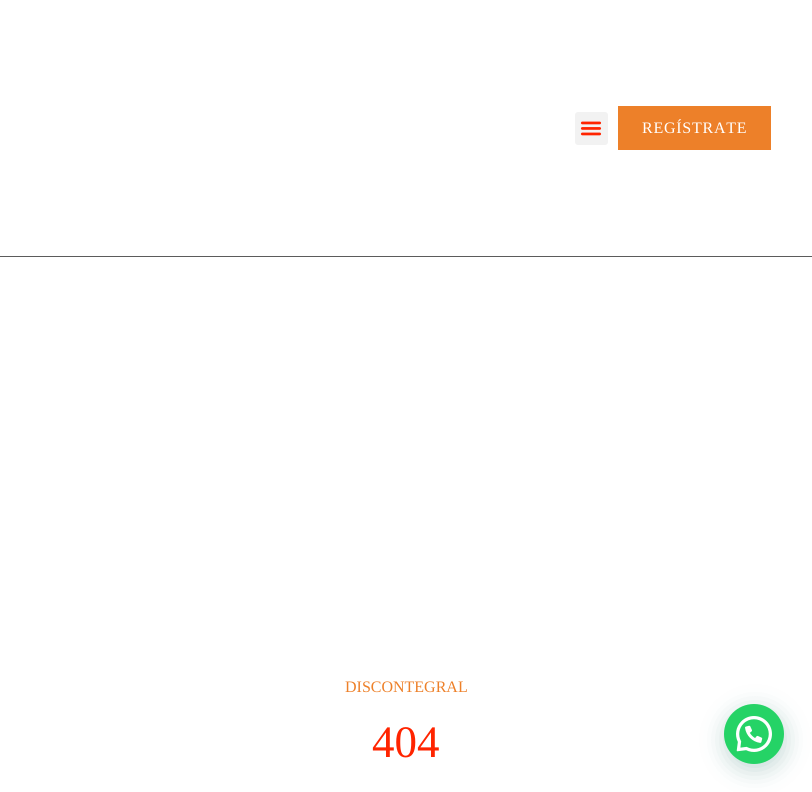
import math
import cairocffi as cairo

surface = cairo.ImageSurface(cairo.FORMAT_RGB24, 812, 792)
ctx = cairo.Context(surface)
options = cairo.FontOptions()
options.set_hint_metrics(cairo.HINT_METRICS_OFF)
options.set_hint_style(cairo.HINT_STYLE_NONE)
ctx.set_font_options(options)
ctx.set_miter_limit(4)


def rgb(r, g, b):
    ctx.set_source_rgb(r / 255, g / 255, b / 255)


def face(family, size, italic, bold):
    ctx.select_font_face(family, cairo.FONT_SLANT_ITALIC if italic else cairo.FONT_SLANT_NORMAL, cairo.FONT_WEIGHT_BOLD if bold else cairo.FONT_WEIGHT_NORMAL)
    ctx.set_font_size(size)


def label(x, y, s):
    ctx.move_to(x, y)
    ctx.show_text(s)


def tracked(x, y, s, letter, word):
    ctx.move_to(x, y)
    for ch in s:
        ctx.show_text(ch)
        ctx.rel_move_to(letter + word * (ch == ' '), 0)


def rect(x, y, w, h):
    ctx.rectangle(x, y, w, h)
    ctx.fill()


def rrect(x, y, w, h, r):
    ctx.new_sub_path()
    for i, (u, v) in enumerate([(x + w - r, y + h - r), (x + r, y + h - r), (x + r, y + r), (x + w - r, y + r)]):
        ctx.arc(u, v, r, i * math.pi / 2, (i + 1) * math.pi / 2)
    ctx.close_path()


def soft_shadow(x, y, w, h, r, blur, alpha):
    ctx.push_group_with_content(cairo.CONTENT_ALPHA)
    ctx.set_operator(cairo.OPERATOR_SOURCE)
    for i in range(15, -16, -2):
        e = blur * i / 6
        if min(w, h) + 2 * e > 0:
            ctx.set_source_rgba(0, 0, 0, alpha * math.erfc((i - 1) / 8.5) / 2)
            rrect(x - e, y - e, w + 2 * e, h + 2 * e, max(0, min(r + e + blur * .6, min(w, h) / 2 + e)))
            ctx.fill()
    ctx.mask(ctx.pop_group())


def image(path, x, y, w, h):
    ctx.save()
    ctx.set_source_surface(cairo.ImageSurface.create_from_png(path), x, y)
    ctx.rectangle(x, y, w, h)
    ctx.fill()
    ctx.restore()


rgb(255, 255, 255)
ctx.paint()
rgb(91, 91, 91)
rect(0, 256, 812, 1)
rgb(242, 242, 242)
rrect(575, 112, 33, 33, 3)
ctx.fill()
image('image0.png', 580, 121, 22, 15)
rgb(237, 128, 41)
rect(618, 106, 153, 44)
face('Liberation Serif', 16, 0, 0)
rgb(255, 255, 255)
tracked(642, 133, 'REGÍSTRATE', 0.75, 0)
rgb(237, 128, 41)
label(345, 692, 'DISCONTEGRAL')
face('Liberation Serif', 45, 0, 0)
rgb(255, 36, 0)
label(372, 757, '404')
rgb(7, 94, 84)
soft_shadow(725, 710, 60, 60, 30, 12, 0.24)
rgb(37, 211, 102)
ctx.arc(754, 734, 30, 0, 2 * math.pi)
ctx.fill()
image('image1.png', 736, 716, 36, 36)
surface.write_to_png('render.png')
